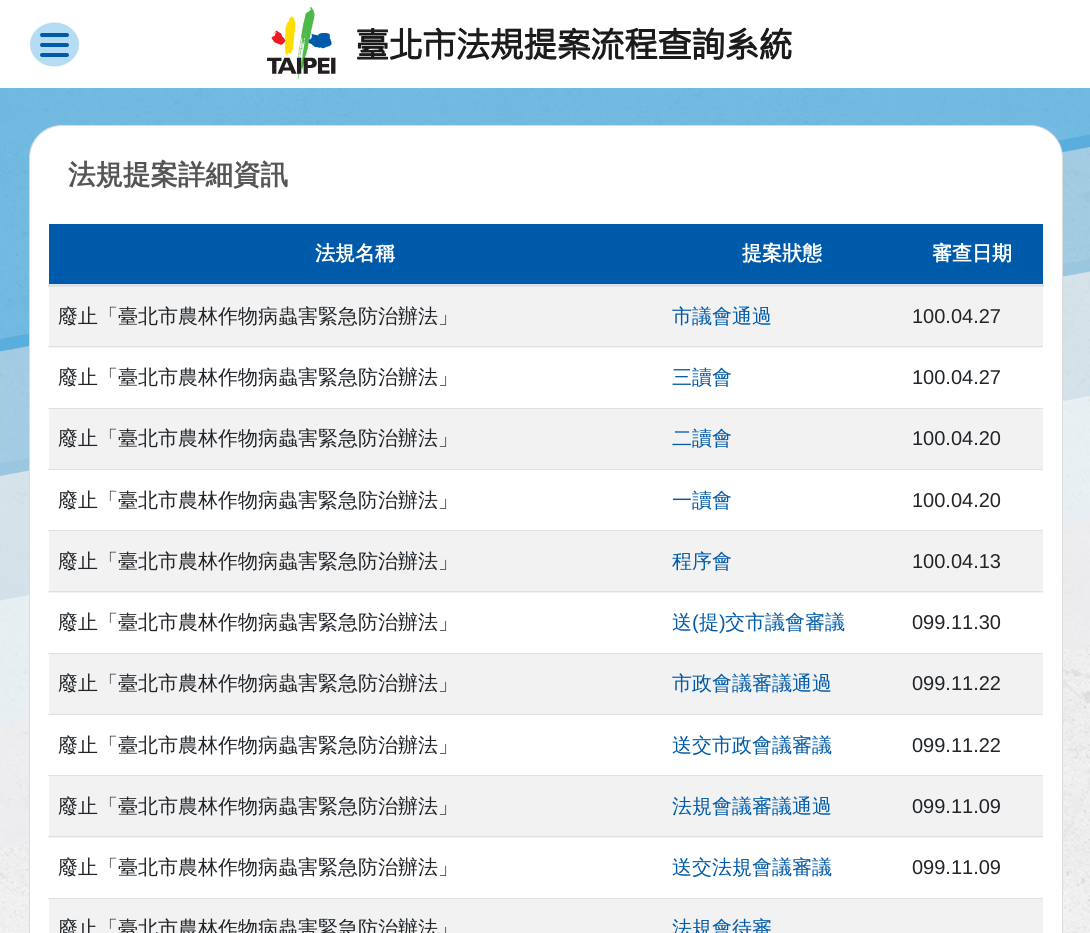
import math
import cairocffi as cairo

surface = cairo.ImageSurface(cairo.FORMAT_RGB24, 1090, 933)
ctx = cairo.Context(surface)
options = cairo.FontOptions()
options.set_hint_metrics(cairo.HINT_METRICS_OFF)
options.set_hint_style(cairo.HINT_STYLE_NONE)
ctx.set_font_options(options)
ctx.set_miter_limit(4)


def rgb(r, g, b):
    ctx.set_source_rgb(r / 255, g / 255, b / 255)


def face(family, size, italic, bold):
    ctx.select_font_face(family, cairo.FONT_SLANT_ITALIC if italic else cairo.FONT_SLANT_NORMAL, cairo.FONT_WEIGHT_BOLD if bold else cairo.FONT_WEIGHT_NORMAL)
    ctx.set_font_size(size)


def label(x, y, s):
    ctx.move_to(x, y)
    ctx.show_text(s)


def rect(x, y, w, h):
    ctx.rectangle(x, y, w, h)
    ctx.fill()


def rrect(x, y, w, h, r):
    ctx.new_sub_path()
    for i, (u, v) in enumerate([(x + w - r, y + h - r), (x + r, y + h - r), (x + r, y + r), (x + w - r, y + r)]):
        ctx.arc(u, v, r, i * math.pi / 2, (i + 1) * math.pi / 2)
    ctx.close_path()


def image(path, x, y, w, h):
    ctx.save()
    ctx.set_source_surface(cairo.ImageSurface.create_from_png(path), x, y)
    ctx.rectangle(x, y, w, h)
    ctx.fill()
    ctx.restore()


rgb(255, 255, 255)
ctx.paint()
image('image0.png', 0, 88, 1090, 845)
rgb(182, 220, 243)
ctx.new_path()
ctx.move_to(54.5, 22.5)
ctx.curve_to(68, 22.5, 79, 32.5, 79, 44.5)
ctx.curve_to(79, 56.5, 68, 66.5, 54.5, 66.5)
ctx.curve_to(41, 66.5, 30, 56.5, 30, 44.5)
ctx.curve_to(30, 32.5, 41, 22.5, 54.5, 22.5)
ctx.close_path()
ctx.fill()
rgb(0, 90, 170)
rrect(40, 43, 29, 4, 2)
ctx.fill()
rrect(40, 33, 29, 4, 2)
ctx.fill()
rrect(40, 53, 29, 4, 2)
ctx.fill()
image('image1.png', 267, 7, 525, 72)
image('image2.png', 0, 88, 1090, 760)
rgb(255, 255, 255)
rrect(29.5, 125.5, 1033, 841, 32.5)
ctx.fill_preserve()
rgb(219, 219, 219)
ctx.set_line_width(1)
ctx.stroke()
face('WenQuanYi Zen Hei', 27.5, 0, 1)
rgb(85, 85, 85)
label(68, 184, '法規提案詳細資訊')
rgb(0, 90, 170)
rect(49, 224, 994, 60)
face('WenQuanYi Zen Hei', 20, 0, 1)
rgb(255, 255, 255)
label(315, 260, '法規名稱')
label(742, 260, '提案狀態')
rgb(222, 226, 230)
rect(48, 284, 996, 3)
rgb(255, 255, 255)
label(932, 260, '審查日期')
rgb(242, 242, 242)
rect(49, 287, 994, 61)
face('WenQuanYi Zen Hei Medium', 20, 0, 0)
rgb(33, 37, 41)
label(58, 323, '廢止「臺北市農林作物病蟲害緊急防治辦法」')
rgb(0, 90, 170)
label(672, 323, '市議會通過')
face('Liberation Sans', 20, 0, 0)
rgb(33, 37, 41)
label(912, 323, '100.04.27')
face('WenQuanYi Zen Hei Medium', 20, 0, 0)
label(58, 384, '廢止「臺北市農林作物病蟲害緊急防治辦法」')
rgb(0, 90, 170)
label(672, 384, '三讀會')
rgb(222, 226, 230)
rect(48, 346, 995, 1)
face('Liberation Sans', 20, 0, 0)
rgb(33, 37, 41)
label(912, 384, '100.04.27')
rgb(242, 242, 242)
rect(49, 409, 994, 60)
face('WenQuanYi Zen Hei Medium', 20, 0, 0)
rgb(33, 37, 41)
label(58, 445, '廢止「臺北市農林作物病蟲害緊急防治辦法」')
rgb(0, 90, 170)
label(672, 445, '二讀會')
rgb(222, 226, 230)
rect(48, 408, 995, 1)
face('Liberation Sans', 20, 0, 0)
rgb(33, 37, 41)
label(912, 445, '100.04.20')
face('WenQuanYi Zen Hei Medium', 20, 0, 0)
label(58, 507, '廢止「臺北市農林作物病蟲害緊急防治辦法」')
rgb(0, 90, 170)
label(672, 507, '一讀會')
rgb(222, 226, 230)
rect(48, 469, 995, 1)
face('Liberation Sans', 20, 0, 0)
rgb(33, 37, 41)
label(912, 507, '100.04.20')
rgb(242, 242, 242)
rect(49, 531, 994, 62)
face('WenQuanYi Zen Hei Medium', 20, 0, 0)
rgb(33, 37, 41)
label(58, 568, '廢止「臺北市農林作物病蟲害緊急防治辦法」')
rgb(0, 90, 170)
label(672, 568, '程序會')
rgb(222, 226, 230)
rect(48, 530, 995, 1)
face('Liberation Sans', 20, 0, 0)
rgb(33, 37, 41)
label(912, 568, '100.04.13')
face('WenQuanYi Zen Hei Medium', 20, 0, 0)
label(58, 629, '廢止「臺北市農林作物病蟲害緊急防治辦法」')
rgb(0, 90, 170)
label(672, 629, '送')
face('Liberation Sans', 20, 0, 0)
label(692, 629, '(')
face('WenQuanYi Zen Hei Medium', 20, 0, 0)
label(699, 629, '提')
face('Liberation Sans', 20, 0, 0)
label(719, 629, ')')
face('WenQuanYi Zen Hei Medium', 20, 0, 0)
label(725, 629, '交市議會審議')
rgb(222, 226, 230)
rect(48, 591, 995, 1)
face('Liberation Sans', 20, 0, 0)
rgb(33, 37, 41)
label(912, 629, '099.11.30')
rgb(242, 242, 242)
rect(49, 654, 994, 60)
face('WenQuanYi Zen Hei Medium', 20, 0, 0)
rgb(33, 37, 41)
label(58, 690, '廢止「臺北市農林作物病蟲害緊急防治辦法」')
rgb(0, 90, 170)
label(672, 690, '市政會議審議通過')
rgb(222, 226, 230)
rect(48, 653, 995, 1)
face('Liberation Sans', 20, 0, 0)
rgb(33, 37, 41)
label(912, 690, '099.11.22')
face('WenQuanYi Zen Hei Medium', 20, 0, 0)
label(58, 752, '廢止「臺北市農林作物病蟲害緊急防治辦法」')
rgb(0, 90, 170)
label(672, 752, '送交市政會議審議')
rgb(222, 226, 230)
rect(48, 714, 995, 1)
face('Liberation Sans', 20, 0, 0)
rgb(33, 37, 41)
label(912, 752, '099.11.22')
rgb(242, 242, 242)
rect(49, 776, 994, 62)
face('WenQuanYi Zen Hei Medium', 20, 0, 0)
rgb(33, 37, 41)
label(58, 813, '廢止「臺北市農林作物病蟲害緊急防治辦法」')
rgb(0, 90, 170)
label(672, 813, '法規會議審議通過')
rgb(222, 226, 230)
rect(48, 775, 995, 1)
face('Liberation Sans', 20, 0, 0)
rgb(33, 37, 41)
label(912, 813, '099.11.09')
face('WenQuanYi Zen Hei Medium', 20, 0, 0)
label(58, 874, '廢止「臺北市農林作物病蟲害緊急防治辦法」')
rgb(0, 90, 170)
label(672, 874, '送交法規會議審議')
rgb(222, 226, 230)
rect(48, 836, 995, 1)
face('Liberation Sans', 20, 0, 0)
rgb(33, 37, 41)
label(912, 874, '099.11.09')
rgb(242, 242, 242)
rect(49, 899, 994, 34)
rgb(222, 226, 230)
rect(48, 898, 995, 1)
face('WenQuanYi Zen Hei Medium', 20, 0, 0)
rgb(33, 37, 41)
label(58, 935, '廢止「臺北市農林作物病蟲害緊急防治辦法」')
rgb(0, 90, 170)
label(672, 935, '法規會待審')
surface.write_to_png('render.png')
